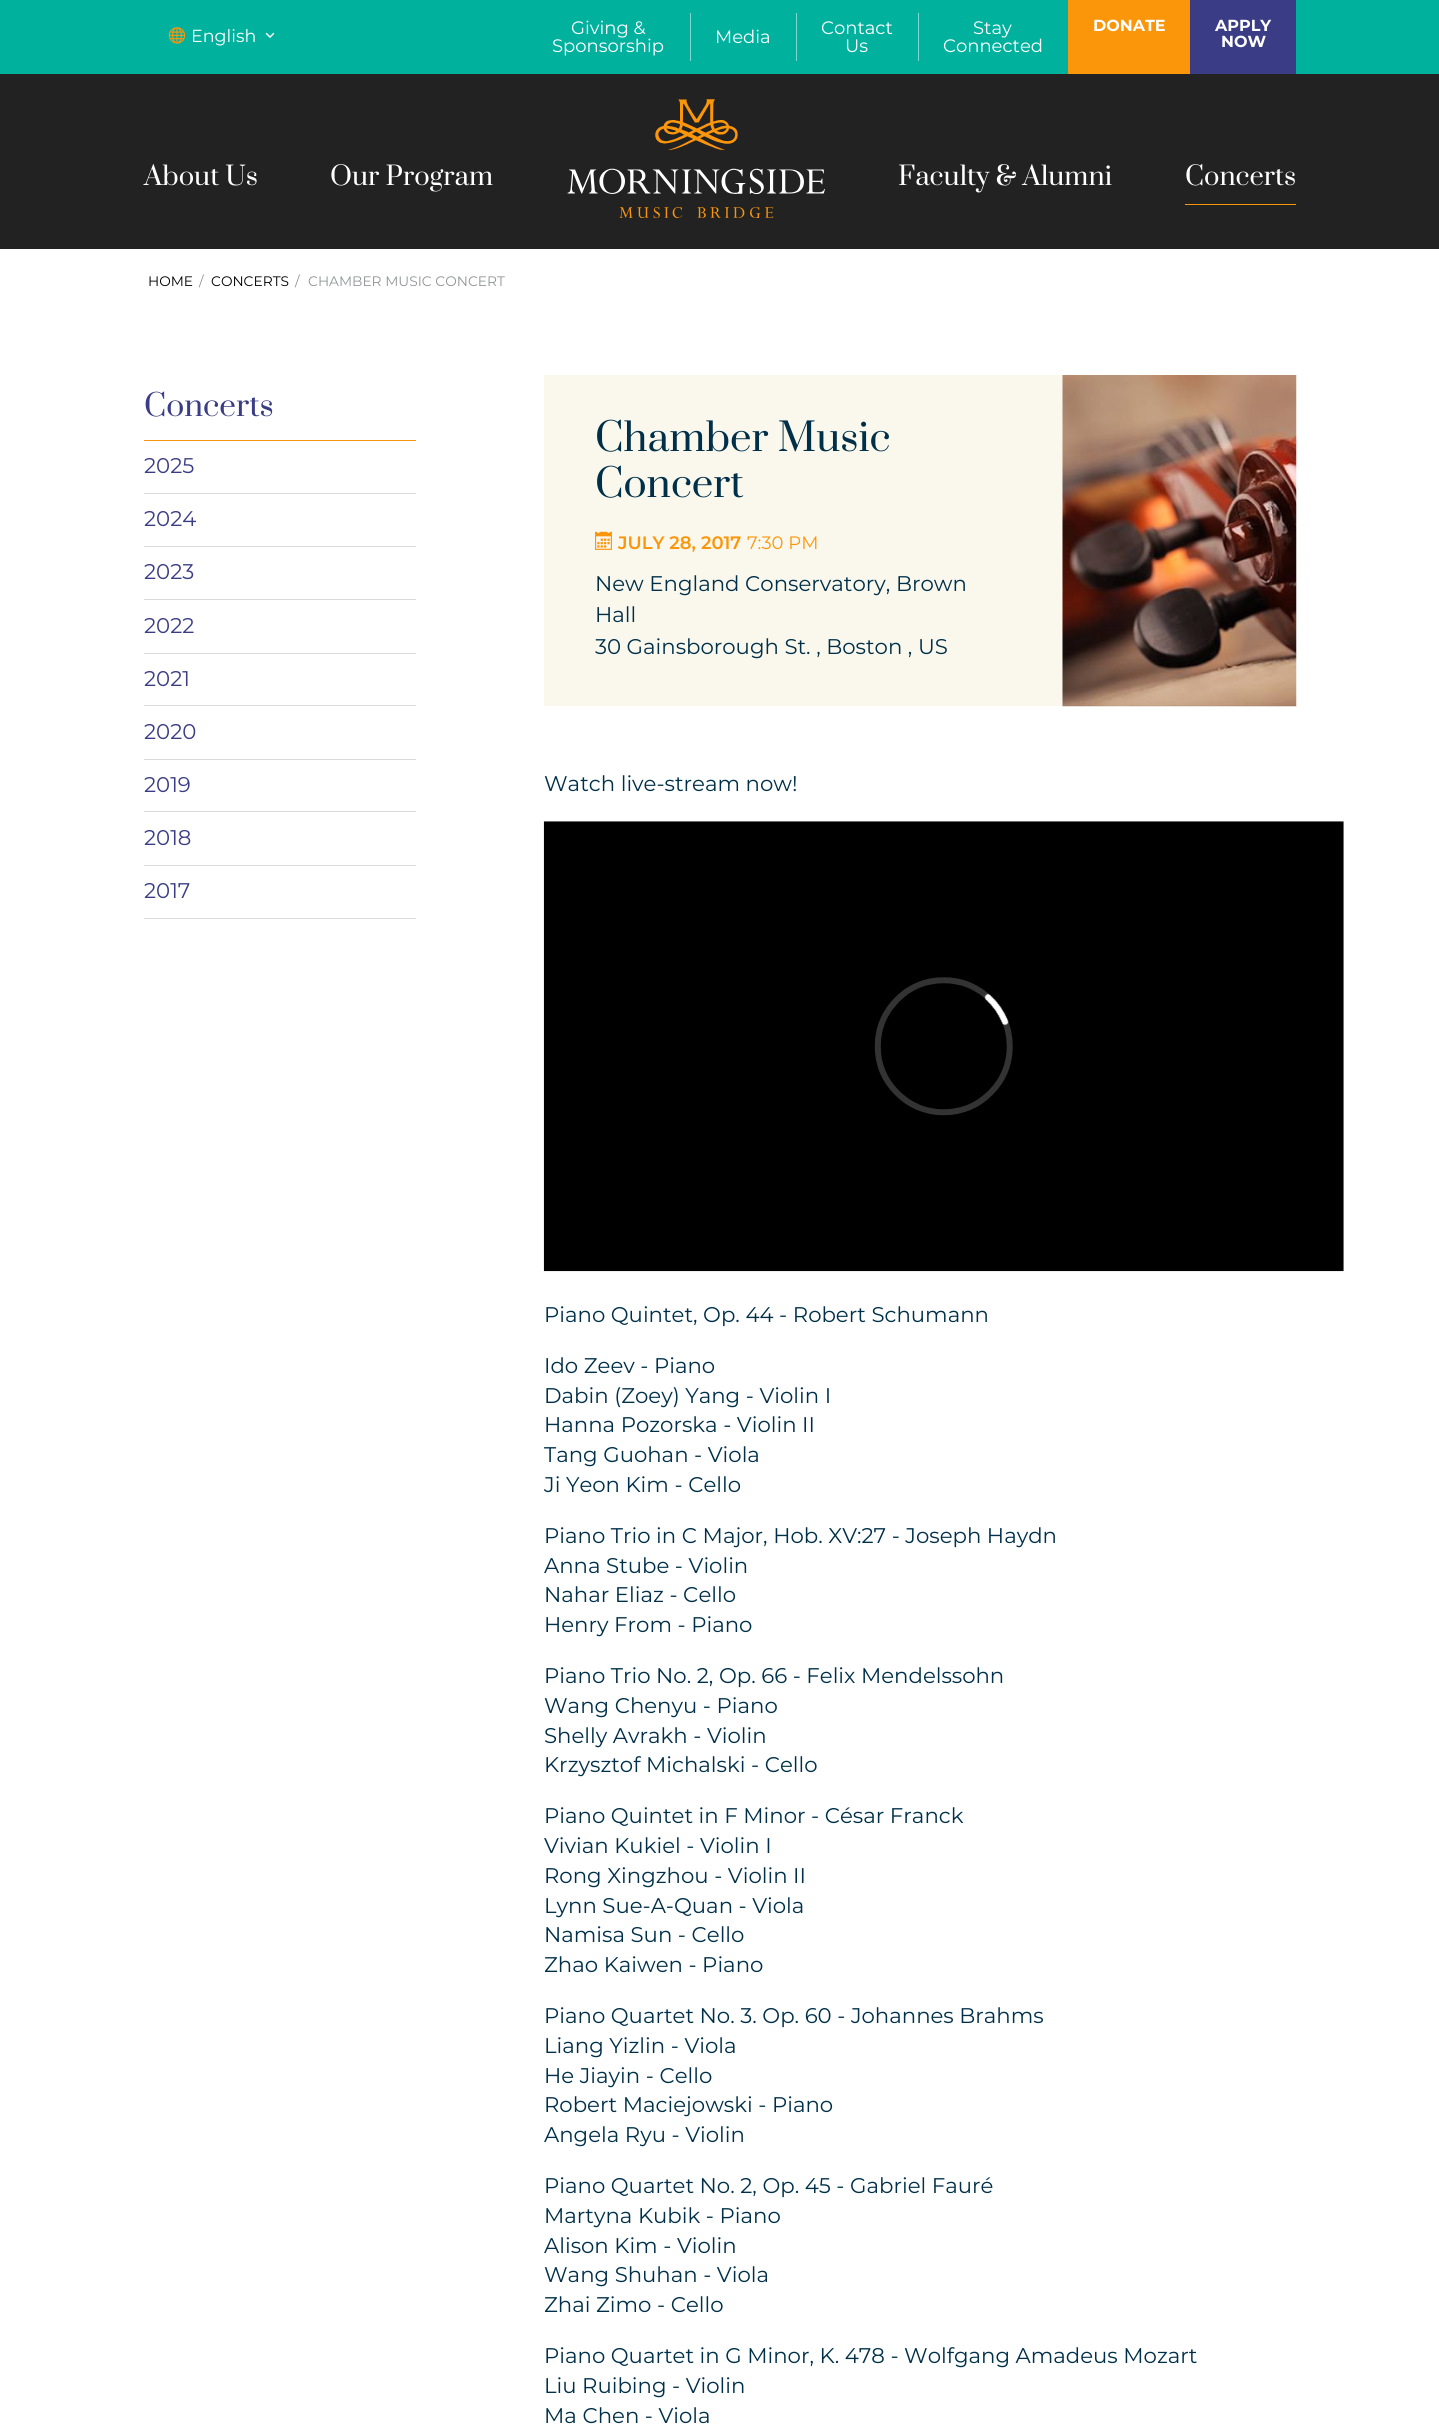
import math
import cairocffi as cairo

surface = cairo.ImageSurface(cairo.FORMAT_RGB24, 1439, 2432)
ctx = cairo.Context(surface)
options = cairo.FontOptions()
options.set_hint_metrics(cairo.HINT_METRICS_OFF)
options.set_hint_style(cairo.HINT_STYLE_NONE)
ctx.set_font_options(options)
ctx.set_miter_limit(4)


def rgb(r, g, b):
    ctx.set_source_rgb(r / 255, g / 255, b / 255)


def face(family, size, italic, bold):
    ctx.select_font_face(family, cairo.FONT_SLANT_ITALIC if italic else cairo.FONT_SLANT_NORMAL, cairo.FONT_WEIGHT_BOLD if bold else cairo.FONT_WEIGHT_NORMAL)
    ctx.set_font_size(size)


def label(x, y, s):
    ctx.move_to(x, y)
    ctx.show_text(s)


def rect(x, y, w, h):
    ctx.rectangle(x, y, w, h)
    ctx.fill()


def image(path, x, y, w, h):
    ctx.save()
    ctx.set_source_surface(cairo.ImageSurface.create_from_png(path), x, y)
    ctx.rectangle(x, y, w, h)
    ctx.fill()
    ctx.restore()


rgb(255, 255, 255)
ctx.paint()
rgb(0, 177, 158)
rect(0, 0, 1439, 74)
image('image0.png', 168, 27, 18, 17)
face('Montserrat', 17.5, 0, 0)
rgb(255, 255, 255)
label(191, 42, 'English')
image('image1.png', 265, 32, 10, 6)
face('Montserrat', 18, 0, 0)
label(571, 34, 'Giving &')
label(552, 52, 'Sponsorship')
rgb(128, 216, 207)
rect(690, 13, 1, 48)
rgb(255, 255, 255)
label(715, 43, 'Media')
rgb(128, 216, 207)
rect(796, 13, 1, 48)
rgb(255, 255, 255)
label(821, 34, 'Contact')
label(845, 52, 'Us')
rgb(128, 216, 207)
rect(918, 13, 1, 48)
rgb(255, 255, 255)
label(973, 34, 'Stay')
label(943, 52, 'Connected')
rgb(251, 150, 10)
rect(1068, 0, 122, 74)
face('Montserrat', 16, 0, 1)
rgb(255, 255, 255)
label(1093, 31, 'DONATE')
rgb(58, 61, 133)
rect(1190, 0, 106, 74)
rgb(255, 255, 255)
label(1215, 31, 'APPLY')
label(1221, 47, 'NOW')
rgb(34, 34, 34)
rect(0, 74, 1439, 175)
face('Prata', 25.5, 0, 0)
rgb(255, 255, 255)
label(144, 185, 'About Us')
label(330, 185, 'Our Program')
image('image2.png', 567, 99, 258, 120)
label(898, 185, 'Faculty & Alumni')
label(1185, 185, 'Concerts')
rgb(251, 150, 10)
rect(1185, 204, 111, 1)
face('Montserrat', 13.75, 0, 0)
rgb(0, 0, 0)
label(148, 286, 'HOME')
rgb(146, 148, 152)
label(199, 286, '/')
rgb(0, 0, 0)
label(211, 286, 'CONCERTS')
rgb(146, 148, 152)
label(295, 286, '/')
label(308, 286, 'CHAMBER MUSIC CONCERT')
face('Prata', 29.75, 0, 0)
rgb(58, 61, 133)
label(144, 416, 'Concerts')
rgb(251, 150, 10)
rect(144, 440, 272, 1)
face('Montserrat', 21.25, 0, 0)
rgb(58, 61, 133)
label(144, 473, '2025')
rgb(218, 218, 218)
rect(144, 493, 272, 1)
rgb(58, 61, 133)
label(144, 526, '2024')
rgb(218, 218, 218)
rect(144, 546, 272, 1)
rgb(58, 61, 133)
label(144, 579, '2023')
rgb(218, 218, 218)
rect(144, 599, 272, 1)
rgb(58, 61, 133)
label(144, 633, '2022')
rgb(218, 218, 218)
rect(144, 653, 272, 1)
rgb(58, 61, 133)
label(144, 686, '2021')
rgb(218, 218, 218)
rect(144, 705, 272, 1)
rgb(58, 61, 133)
label(144, 739, '2020')
rgb(218, 218, 218)
rect(144, 759, 272, 1)
rgb(58, 61, 133)
label(144, 792, '2019')
rgb(218, 218, 218)
rect(144, 811, 272, 1)
rgb(58, 61, 133)
label(144, 845, '2018')
rgb(218, 218, 218)
rect(144, 865, 272, 1)
rect(144, 918, 272, 1)
rgb(58, 61, 133)
label(144, 898, '2017')
rgb(250, 247, 237)
rect(544, 375, 519, 331)
face('Prata', 38.25, 0, 0)
rgb(0, 48, 73)
label(595, 451, 'Chamber Music')
label(595, 497, 'Concert')
image('image3.png', 595, 531, 17, 19)
face('Montserrat SemiBold', 18, 0, 0)
rgb(251, 150, 10)
label(618, 549, 'JULY 28, 2017')
face('Montserrat', 18, 0, 0)
label(747, 549, '7:30 PM')
face('Montserrat', 21.25, 0, 0)
rgb(0, 48, 73)
label(595, 591, 'New England Conservatory, Brown')
label(595, 622, 'Hall')
label(595, 654, '30 Gainsborough St. , Boston , US')
image('image4.png', 1062, 375, 235, 332)
label(544, 791, 'Watch live-stream now!')
image('image5.png', 543, 821, 801, 451)
label(544, 1322, 'Piano Quintet, Op. 44 - Robert Schumann')
label(544, 1373, 'Ido Zeev - Piano')
label(544, 1403, 'Dabin (Zoey) Yang - Violin I')
label(544, 1432, 'Hanna Pozorska - Violin II')
label(544, 1462, 'Tang Guohan - Viola')
label(544, 1492, 'Ji Yeon Kim - Cello')
label(544, 1543, 'Piano Trio in C Major, Hob. XV:27 - Joseph Haydn')
label(544, 1573, 'Anna Stube - Violin')
label(544, 1602, 'Nahar Eliaz - Cello')
label(544, 1632, 'Henry From - Piano')
label(544, 1683, 'Piano Trio No. 2, Op. 66 - Felix Mendelssohn')
label(544, 1713, 'Wang Chenyu - Piano')
label(544, 1743, 'Shelly Avrakh - Violin')
label(544, 1772, 'Krzysztof Michalski - Cello')
label(544, 1823, 'Piano Quintet in F Minor - César Franck')
label(544, 1853, 'Vivian Kukiel - Violin I')
label(544, 1883, 'Rong Xingzhou - Violin II')
label(544, 1913, 'Lynn Sue-A-Quan - Viola')
label(544, 1942, 'Namisa Sun - Cello')
label(544, 1972, 'Zhao Kaiwen - Piano')
label(544, 2023, 'Piano Quartet No. 3. Op. 60 - Johannes Brahms')
label(544, 2053, 'Liang Yizlin - Viola')
label(544, 2083, 'He Jiayin - Cello')
label(544, 2112, 'Robert Maciejowski - Piano')
label(544, 2142, 'Angela Ryu - Violin')
label(544, 2193, 'Piano Quartet No. 2, Op. 45 - Gabriel Fauré')
label(544, 2223, 'Martyna Kubik - Piano')
label(544, 2253, 'Alison Kim - Violin')
label(544, 2282, 'Wang Shuhan - Viola')
label(544, 2312, 'Zhai Zimo - Cello')
label(544, 2363, 'Piano Quartet in G Minor, K. 478 - Wolfgang Amadeus Mozart')
label(544, 2393, 'Liu Ruibing - Violin')
label(544, 2423, 'Ma Chen - Viola')
surface.write_to_png('render.png')
